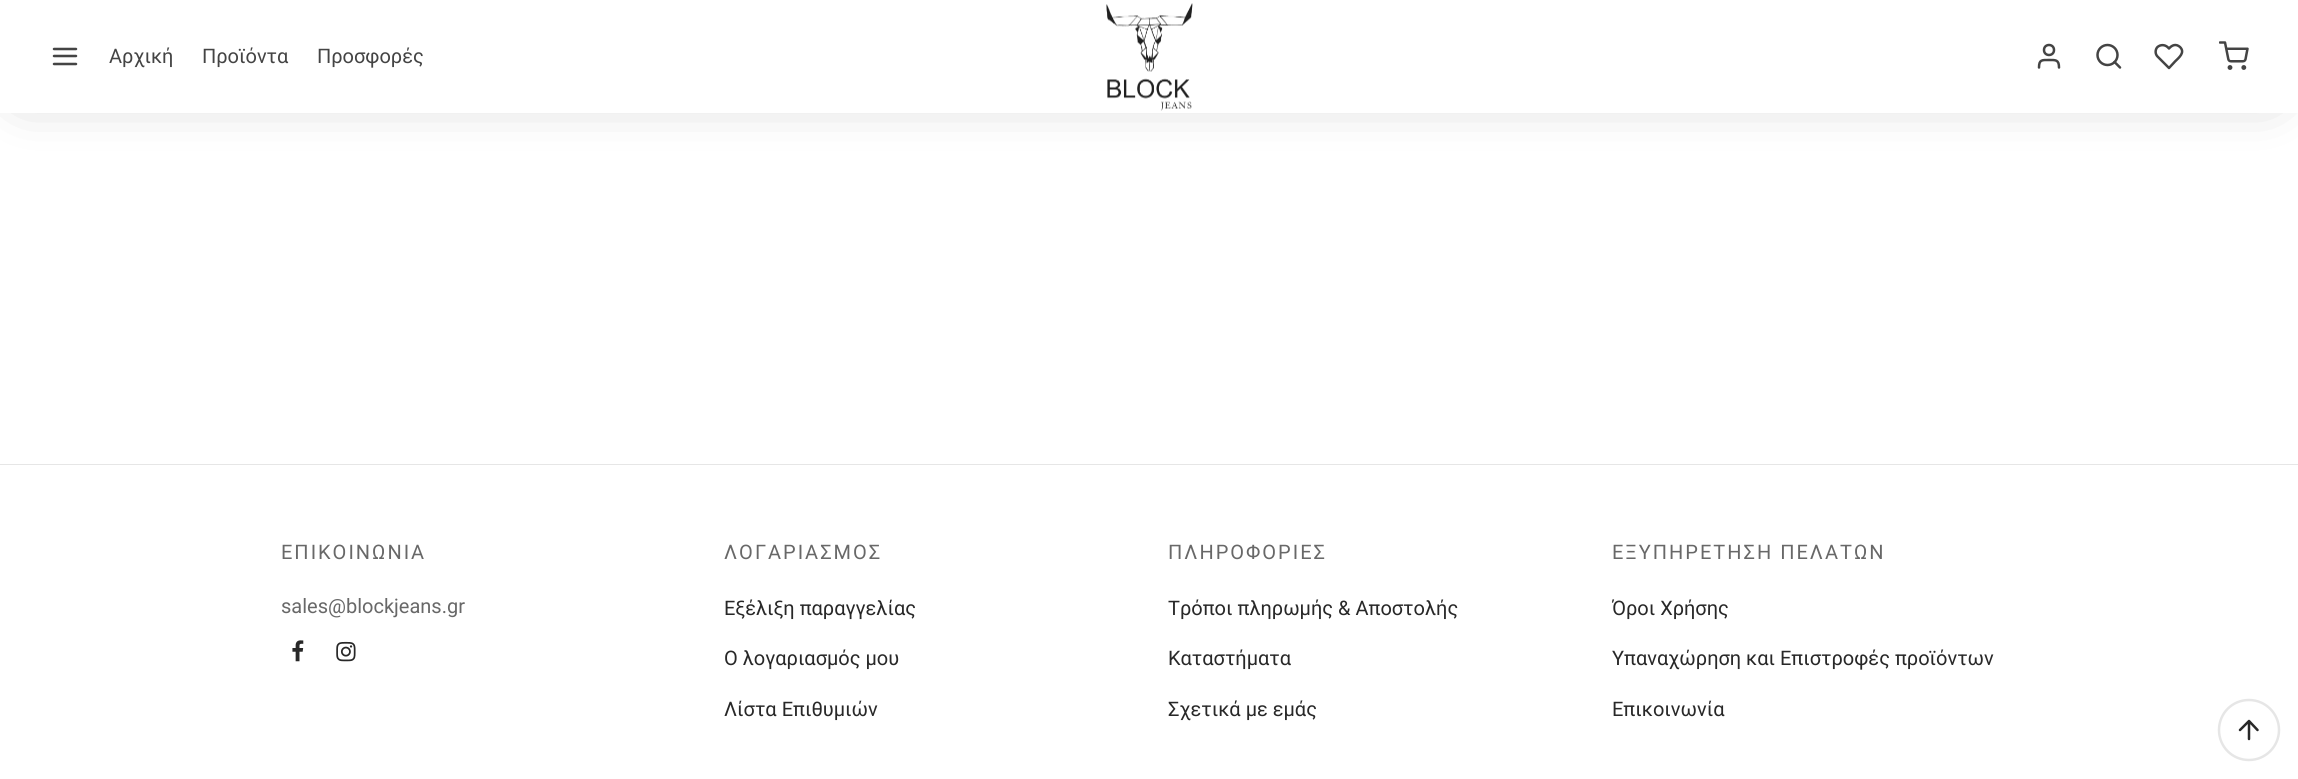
import math
import cairocffi as cairo

surface = cairo.ImageSurface(cairo.FORMAT_RGB24, 2298, 779)
ctx = cairo.Context(surface)
options = cairo.FontOptions()
options.set_hint_metrics(cairo.HINT_METRICS_OFF)
options.set_hint_style(cairo.HINT_STYLE_NONE)
ctx.set_font_options(options)
ctx.set_miter_limit(4)


def rgb(r, g, b):
    ctx.set_source_rgb(r / 255, g / 255, b / 255)


def face(family, size, italic, bold):
    ctx.select_font_face(family, cairo.FONT_SLANT_ITALIC if italic else cairo.FONT_SLANT_NORMAL, cairo.FONT_WEIGHT_BOLD if bold else cairo.FONT_WEIGHT_NORMAL)
    ctx.set_font_size(size)


def label(x, y, s):
    ctx.move_to(x, y)
    ctx.show_text(s)


def tracked(x, y, s, letter, word):
    ctx.move_to(x, y)
    for ch in s:
        ctx.show_text(ch)
        ctx.rel_move_to(letter + word * (ch == ' '), 0)


def rect(x, y, w, h):
    ctx.rectangle(x, y, w, h)
    ctx.fill()


def rrect(x, y, w, h, r):
    ctx.new_sub_path()
    for i, (u, v) in enumerate([(x + w - r, y + h - r), (x + r, y + h - r), (x + r, y + r), (x + w - r, y + r)]):
        ctx.arc(u, v, r, i * math.pi / 2, (i + 1) * math.pi / 2)
    ctx.close_path()


def soft_shadow(x, y, w, h, r, blur, alpha):
    ctx.push_group_with_content(cairo.CONTENT_ALPHA)
    ctx.set_operator(cairo.OPERATOR_SOURCE)
    for i in range(15, -16, -2):
        e = blur * i / 6
        if min(w, h) + 2 * e > 0:
            ctx.set_source_rgba(0, 0, 0, alpha * math.erfc((i - 1) / 8.5) / 2)
            rrect(x - e, y - e, w + 2 * e, h + 2 * e, max(0, min(r + e + blur * .6, min(w, h) / 2 + e)))
            ctx.fill()
    ctx.mask(ctx.pop_group())


def image(path, x, y, w, h):
    ctx.save()
    ctx.set_source_surface(cairo.ImageSurface.create_from_png(path), x, y)
    ctx.rectangle(x, y, w, h)
    ctx.fill()
    ctx.restore()


rgb(255, 255, 255)
ctx.paint()
rgb(0, 0, 0)
soft_shadow(23, 28, 2248, 62, 0, 28, 0.3)
rgb(255, 255, 255)
rect(0, 0, 2298, 113)
ctx.new_path()
ctx.move_to(54, 56)
ctx.line_to(76, 56)
ctx.move_to(54, 49)
ctx.line_to(76, 49)
ctx.move_to(54, 64)
ctx.line_to(76, 64)
rgb(68, 68, 68)
ctx.set_line_width(2.5)
ctx.set_line_cap(cairo.LINE_CAP_ROUND)
ctx.set_line_join(cairo.LINE_JOIN_ROUND)
ctx.stroke()
face('Roboto', 20, 0, 0)
label(109, 63, 'Αρχική')
label(202, 63, 'Προϊόντα')
label(317, 63, 'Προσφορές')
image('image0.png', 1106, 3, 87, 108)
ctx.new_path()
ctx.move_to(2059, 67.5)
ctx.curve_to(2059, 59.5, 2055.5, 60, 2049, 60)
ctx.curve_to(2042, 60, 2039, 59.5, 2039, 67.5)
ctx.stroke()
ctx.arc(2049, 50, 5, 0, 2 * math.pi)
ctx.set_line_cap(cairo.LINE_CAP_BUTT)
ctx.set_line_join(cairo.LINE_JOIN_MITER)
ctx.stroke()
ctx.arc(2107.5, 55, 10, 0, 2 * math.pi)
ctx.stroke()
ctx.new_path()
ctx.move_to(2120, 67.5)
ctx.line_to(2114.5, 62)
ctx.set_line_cap(cairo.LINE_CAP_ROUND)
ctx.set_line_join(cairo.LINE_JOIN_ROUND)
ctx.stroke()
ctx.new_path()
ctx.move_to(2180, 47)
ctx.curve_to(2176, 43.5, 2172, 45, 2169, 48.5)
ctx.line_to(2167.5, 47)
ctx.curve_to(2164.5, 44.5, 2160.5, 44.5, 2157.5, 47)
ctx.curve_to(2155, 49.5, 2155, 54, 2157.5, 56.5)
ctx.line_to(2169, 68)
ctx.line_to(2175, 61.5)
ctx.curve_to(2179, 57.5, 2185.5, 52.5, 2180, 47)
ctx.close_path()
ctx.stroke()
image('image1.png', 2219, 41, 30, 29)
rgb(230, 230, 230)
rect(0, 464, 2298, 1)
rgb(104, 104, 104)
tracked(281, 559, 'ΕΠΙΚΟΙΝΩΝΙΑ', 2, 0)
label(281, 613, 'sales@blockjeans.gr')
image('image2.png', 292, 640, 12, 22)
image('image3.png', 336, 641, 20, 21)
tracked(724, 559, 'ΛΟΓΑΡΙΑΣΜΟΣ', 2, 0)
rgb(40, 40, 40)
label(724, 615, 'Εξέλιξη παραγγελίας')
label(724, 665, 'Ο λογαριασμός μου')
label(724, 716, 'Λίστα Επιθυμιών')
rgb(104, 104, 104)
tracked(1168, 559, 'ΠΛΗΡΟΦΟΡΙΕΣ', 2, 0)
rgb(40, 40, 40)
label(1168, 615, 'Τρόποι πληρωμής & Αποστολής')
label(1168, 665, 'Καταστήματα')
label(1168, 716, 'Σχετικά με εμάς')
rgb(104, 104, 104)
tracked(1612, 559, 'ΕΞΥΠΗΡΕΤΗΣΗ ΠΕΛΑΤΩΝ', 2, 0)
rgb(40, 40, 40)
label(1612, 615, 'Όροι Χρήσης')
label(1612, 665, 'Υπαναχώρηση και Επιστροφές προϊόντων')
label(1612, 716, 'Επικοινωνία')
ctx.new_path()
ctx.move_to(2219, 730)
ctx.curve_to(2219, 713.5, 2232, 700, 2249, 700)
ctx.curve_to(2265.5, 700, 2279, 713.5, 2279, 730)
ctx.curve_to(2279, 746.5, 2265.5, 760, 2249, 760)
ctx.curve_to(2232, 760, 2219, 746.5, 2219, 730)
ctx.close_path()
rgb(230, 230, 230)
ctx.set_line_cap(cairo.LINE_CAP_BUTT)
ctx.set_line_join(cairo.LINE_JOIN_MITER)
ctx.stroke()
ctx.new_path()
ctx.move_to(2249, 739)
ctx.line_to(2249, 721)
ctx.move_to(2240, 730)
ctx.line_to(2249, 721)
ctx.line_to(2257.5, 730)
rgb(40, 40, 40)
ctx.set_line_cap(cairo.LINE_CAP_ROUND)
ctx.set_line_join(cairo.LINE_JOIN_ROUND)
ctx.stroke()
surface.write_to_png('render.png')
